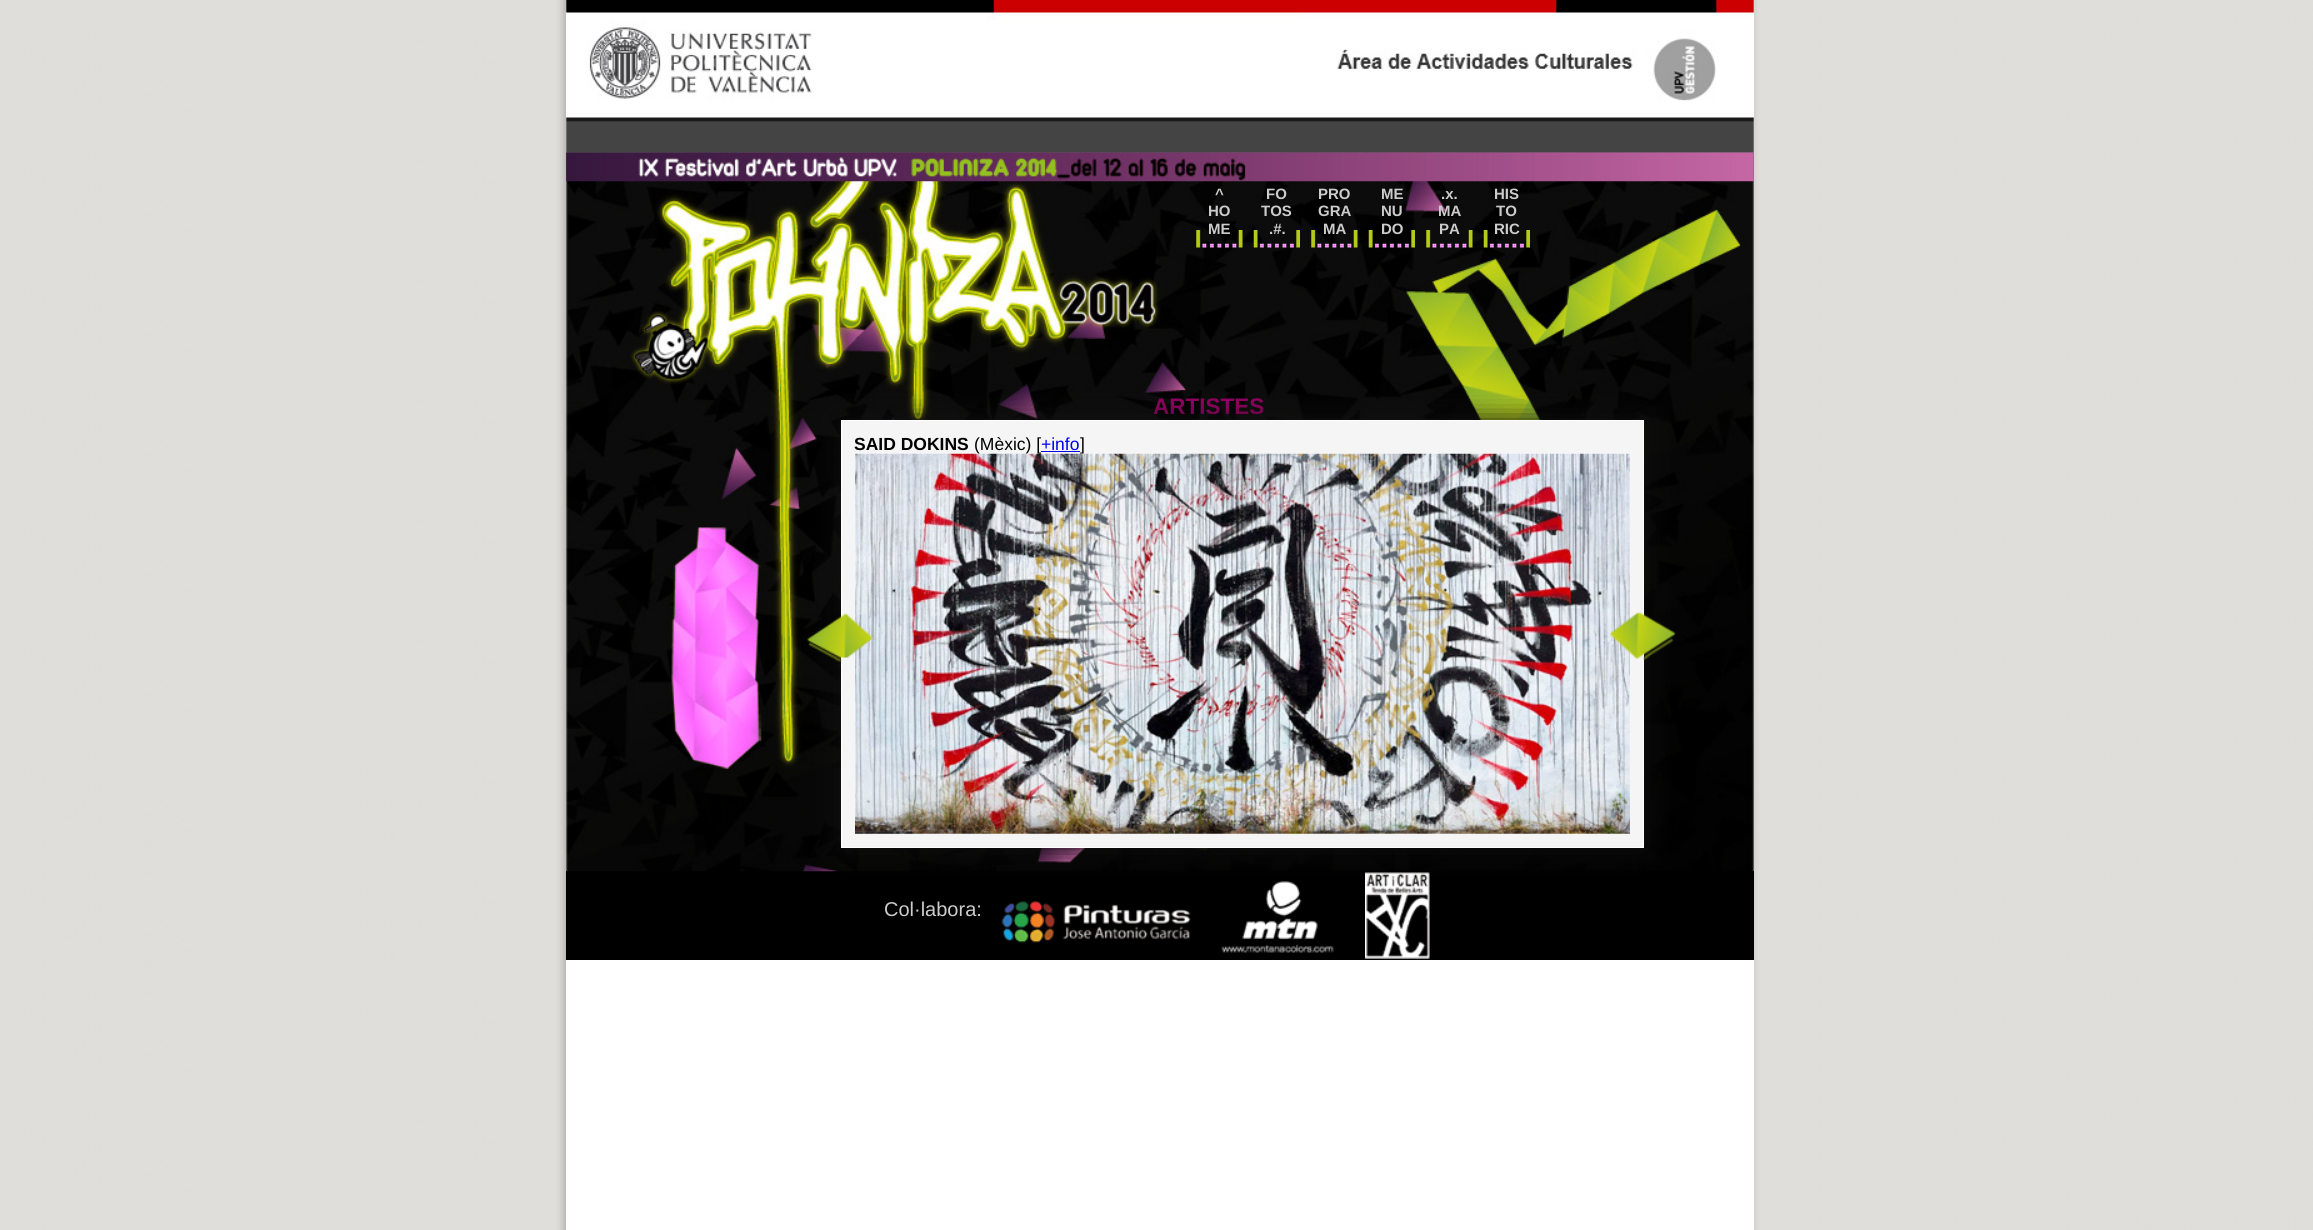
import math
import cairocffi as cairo

surface = cairo.ImageSurface(cairo.FORMAT_RGB24, 2313, 1230)
ctx = cairo.Context(surface)
options = cairo.FontOptions()
options.set_hint_metrics(cairo.HINT_METRICS_OFF)
options.set_hint_style(cairo.HINT_STYLE_NONE)
ctx.set_font_options(options)
ctx.set_miter_limit(4)


def rgb(r, g, b):
    ctx.set_source_rgb(r / 255, g / 255, b / 255)


def face(family, size, italic, bold):
    ctx.select_font_face(family, cairo.FONT_SLANT_ITALIC if italic else cairo.FONT_SLANT_NORMAL, cairo.FONT_WEIGHT_BOLD if bold else cairo.FONT_WEIGHT_NORMAL)
    ctx.set_font_size(size)


def label(x, y, s):
    ctx.move_to(x, y)
    ctx.show_text(s)


def rect(x, y, w, h):
    ctx.rectangle(x, y, w, h)
    ctx.fill()


def rrect(x, y, w, h, r):
    ctx.new_sub_path()
    for i, (u, v) in enumerate([(x + w - r, y + h - r), (x + r, y + h - r), (x + r, y + r), (x + w - r, y + r)]):
        ctx.arc(u, v, r, i * math.pi / 2, (i + 1) * math.pi / 2)
    ctx.close_path()


def soft_shadow(x, y, w, h, r, blur, alpha):
    ctx.push_group_with_content(cairo.CONTENT_ALPHA)
    ctx.set_operator(cairo.OPERATOR_SOURCE)
    for i in range(15, -16, -2):
        e = blur * i / 6
        if min(w, h) + 2 * e > 0:
            ctx.set_source_rgba(0, 0, 0, alpha * math.erfc((i - 1) / 8.5) / 2)
            rrect(x - e, y - e, w + 2 * e, h + 2 * e, max(0, min(r + e + blur * .6, min(w, h) / 2 + e)))
            ctx.fill()
    ctx.mask(ctx.pop_group())


def image(path, x, y, w, h):
    ctx.save()
    ctx.set_source_surface(cairo.ImageSurface.create_from_png(path), x, y)
    ctx.rectangle(x, y, w, h)
    ctx.fill()
    ctx.restore()


rgb(255, 255, 255)
ctx.paint()
image('image0.png', 0, 0, 2313, 1230)
rgb(255, 255, 255)
rect(566, 0, 1188, 1230)
image('image1.png', 566, 0, 1188, 153)
rgb(0, 0, 0)
rect(566, 871, 1188, 89)
image('image2.png', 566, 152, 1188, 720)
image('image3.png', 566, 152, 1188, 30)
image('image4.png', 1196, 230, 47, 18)
face('Liberation Sans', 15, 0, 1)
rgb(204, 204, 204)
label(1215, 199, '^')
label(1208, 216, 'HO')
label(1208, 234, 'ME')
image('image5.png', 1253, 230, 47, 18)
label(1266, 199, 'FO')
label(1261, 216, 'TOS')
label(1269, 234, '.#.')
image('image6.png', 1311, 230, 47, 18)
label(1318, 199, 'PRO')
label(1318, 216, 'GRA')
label(1323, 234, 'MA')
image('image7.png', 1368, 230, 47, 18)
label(1381, 199, 'ME')
label(1381, 216, 'NU')
label(1381, 234, 'DO')
image('image8.png', 1426, 230, 47, 18)
label(1441, 199, '.x.')
label(1438, 216, 'MA')
label(1439, 234, 'PA')
image('image9.png', 1483, 230, 47, 18)
label(1494, 199, 'HIS')
label(1496, 216, 'TO')
label(1494, 234, 'RIC')
face('Liberation Sans', 22.5, 0, 1)
rgb(153, 0, 102)
label(1153, 414, 'ARTISTES')
image('image14.png', 1221, 881, 113, 72)
image('image15.png', 1365, 872, 65, 87)
rgb(17, 17, 17)
soft_shadow(841, 420, 803, 428, 0, 14, 1)
rgb(245, 245, 245)
ctx.rectangle(841.5, 420.5, 802, 427)
ctx.fill_preserve()
rgb(255, 255, 255)
ctx.set_line_width(1)
ctx.stroke()
face('Liberation Sans', 17.5, 0, 1)
rgb(0, 0, 0)
label(854, 450, 'SAID DOKINS')
face('Liberation Sans', 17.5, 0, 0)
label(974, 450, '(Mèxic) [')
rgb(0, 0, 238)
label(1041, 450, '+info')
rect(1041, 451, 39, 1)
rgb(0, 0, 0)
label(1080, 450, ']')
image('image10.png', 855, 453, 775, 381)
image('image11.png', 807, 613, 66, 50)
image('image12.png', 1610, 612, 66, 49)
face('Liberation Sans', 20, 0, 0)
rgb(204, 204, 204)
label(884, 916, 'Col·labora:')
image('image13.png', 1001, 901, 190, 42)
surface.write_to_png('render.png')
